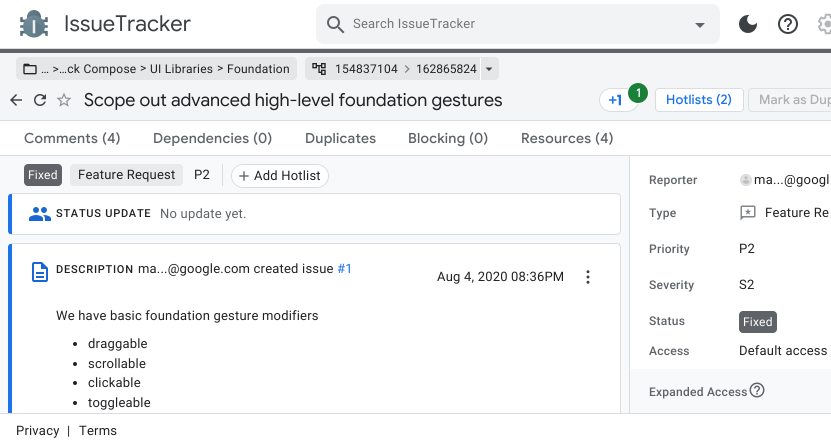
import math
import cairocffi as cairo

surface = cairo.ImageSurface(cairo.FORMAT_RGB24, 831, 448)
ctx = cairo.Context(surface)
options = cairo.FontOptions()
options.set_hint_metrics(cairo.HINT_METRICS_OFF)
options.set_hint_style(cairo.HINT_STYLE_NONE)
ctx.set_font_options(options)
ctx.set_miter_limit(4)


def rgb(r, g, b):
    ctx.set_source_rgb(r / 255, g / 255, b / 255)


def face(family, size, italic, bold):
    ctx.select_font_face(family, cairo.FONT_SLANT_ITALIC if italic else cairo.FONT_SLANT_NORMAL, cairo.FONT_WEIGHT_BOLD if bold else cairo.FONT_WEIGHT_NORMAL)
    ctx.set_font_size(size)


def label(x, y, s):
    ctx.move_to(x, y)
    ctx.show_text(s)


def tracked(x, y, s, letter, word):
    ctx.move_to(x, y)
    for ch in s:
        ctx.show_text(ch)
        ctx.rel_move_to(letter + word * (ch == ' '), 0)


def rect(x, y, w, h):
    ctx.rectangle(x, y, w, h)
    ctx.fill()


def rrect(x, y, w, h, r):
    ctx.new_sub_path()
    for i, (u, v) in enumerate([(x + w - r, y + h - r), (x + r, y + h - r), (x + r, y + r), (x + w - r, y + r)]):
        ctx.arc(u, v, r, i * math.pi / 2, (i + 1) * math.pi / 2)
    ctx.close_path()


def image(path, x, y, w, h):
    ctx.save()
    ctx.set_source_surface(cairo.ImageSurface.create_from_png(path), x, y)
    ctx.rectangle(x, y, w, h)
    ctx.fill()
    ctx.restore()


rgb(255, 255, 255)
ctx.paint()
image('image0.png', 20, 10, 28, 28)
face('Google Sans', 22, 0, 0)
rgb(60, 64, 67)
tracked(64, 31, 'IssueTracker', 0.1, 0)
rgb(241, 243, 244)
rrect(316, 4, 404, 40, 8)
ctx.fill()
image('image1.png', 327, 16, 18, 18)
face('Roboto', 13, 0, 0)
rgb(117, 117, 117)
tracked(353, 28, 'Search IssueTracker', 0.2, 0)
rgb(95, 99, 104)
ctx.new_path()
ctx.move_to(695, 23)
ctx.line_to(700, 28)
ctx.line_to(705, 23)
ctx.close_path()
ctx.fill()
image('image2.png', 739, 15, 18, 18)
image('image3.png', 778, 14, 20, 20)
image('image4.png', 818, 13, 13, 22)
rgb(218, 220, 224)
rect(0, 48, 831, 1)
rgb(244, 245, 246)
rect(0, 53, 831, 67)
rgb(95, 99, 104)
rect(0, 49, 831, 4)
rgb(218, 220, 224)
rect(0, 120, 831, 1)
rgb(229, 230, 231)
rrect(16, 57, 281, 23, 4)
ctx.fill()
image('image5.png', 23, 63, 14, 12)
face('Roboto', 12, 0, 0)
rgb(32, 33, 36)
tracked(41, 73, '… >…ck Compose', 0.25, 0)
tracked(140, 72, '>', 0.25, 0)
tracked(150, 73, 'UI Libraries', 0.25, 0)
tracked(217, 72, '>', 0.25, 0)
tracked(227, 73, 'Foundation', 0.25, 0)
rgb(229, 230, 231)
rrect(305, 57, 194, 23, 4)
ctx.fill()
image('image6.png', 312, 63, 14, 12)
rgb(32, 33, 36)
tracked(335, 73, '154837104', 0.25, 0)
image('image7.png', 404, 65, 6, 8)
label(416, 73, '162865824')
rgb(255, 255, 255)
rect(480, 58, 1, 22)
rgb(60, 64, 67)
ctx.new_path()
ctx.move_to(485.5, 67.5)
ctx.line_to(489, 71)
ctx.line_to(492.5, 67.5)
ctx.close_path()
ctx.fill()
image('image8.png', 10, 94, 12, 12)
image('image9.png', 34, 94, 12, 12)
image('image10.png', 56, 92, 16, 15)
face('Google Sans', 18, 0, 0)
rgb(32, 33, 36)
label(84, 106, 'Scope out advanced high-level foundation gestures')
rgb(255, 255, 255)
rrect(599.5, 88.5, 39, 23, 11.5)
ctx.fill_preserve()
rgb(218, 220, 224)
ctx.set_line_width(1)
ctx.stroke()
ctx.arc(638, 93, 10.5, 0, 2 * math.pi)
rgb(255, 255, 255)
ctx.stroke()
rgb(24, 128, 56)
ctx.arc(638, 93, 10, 0, 2 * math.pi)
ctx.fill()
face('Google Sans Medium', 12, 0, 0)
rgb(255, 255, 255)
tracked(636, 97, '1', 0.1, 0)
image('image11.png', 609, 94, 12, 12)
rrect(655.5, 88.5, 88, 23, 3.5)
ctx.fill_preserve()
rgb(218, 220, 224)
ctx.stroke()
face('Google Sans Medium', 13, 0, 0)
rgb(26, 115, 232)
tracked(666, 104, 'Hotlists (2)', 0.1, 0)
rrect(748.5, 88.5, 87, 23, 3.5)
rgb(222, 223, 225)
ctx.stroke()
rgb(174, 176, 178)
tracked(759, 104, 'Mark as Dup', 0.1, 0)
rgb(218, 220, 224)
rect(0, 155, 831, 1)
face('Google Sans Medium', 14, 0, 0)
rgb(95, 99, 104)
tracked(24, 143, 'Comments', 0.25, 0)
tracked(102, 143, '(4)', 0.25, 0)
tracked(153, 143, 'Dependencies', 0.25, 0)
tracked(253, 143, '(0)', 0.25, 0)
tracked(305, 143, 'Duplicates', 0.25, 0)
tracked(408, 143, 'Blocking', 0.25, 0)
tracked(469, 143, '(0)', 0.25, 0)
tracked(521, 143, 'Resources', 0.25, 0)
tracked(595, 143, '(4)', 0.25, 0)
rgb(248, 249, 250)
rect(0, 156, 629, 257)
rgb(218, 220, 224)
rect(222, 164, 1, 22)
rgb(95, 99, 104)
rrect(24.5, 164.5, 37, 21, 3.5)
ctx.fill_preserve()
ctx.stroke()
face('Roboto', 12, 0, 0)
rgb(255, 255, 255)
tracked(28, 179, 'Fixed', 0.2, 0)
rgb(233, 234, 235)
rrect(70, 164, 113, 22, 4)
ctx.fill()
face('Roboto', 13, 0, 0)
rgb(32, 33, 36)
tracked(78, 179, 'Feature Request', 0.2, 0)
tracked(194, 179, 'P2', 0.2, 0)
rgb(255, 255, 255)
rrect(231.5, 164.5, 97, 23, 11.5)
ctx.fill_preserve()
rgb(218, 220, 224)
ctx.stroke()
image('image12.png', 239, 171, 10, 10)
rgb(32, 33, 36)
tracked(254, 180, 'Add Hotlist', 0.2, 0)
rgb(255, 255, 255)
ctx.new_path()
ctx.move_to(12, 194)
ctx.line_to(617, 194)
ctx.curve_to(619, 194, 620, 195, 620, 197)
ctx.line_to(620, 231)
ctx.curve_to(620, 233, 619, 234, 617, 234)
ctx.line_to(12, 234)
ctx.close_path()
ctx.fill()
rgb(218, 220, 224)
ctx.new_path()
ctx.move_to(12, 193)
ctx.line_to(10, 194)
ctx.line_to(12, 194)
ctx.line_to(617, 194)
ctx.line_to(619, 195)
ctx.line_to(620, 194)
ctx.line_to(617, 193)
ctx.close_path()
ctx.fill()
ctx.new_path()
ctx.move_to(621, 231)
ctx.line_to(621, 197)
ctx.curve_to(621, 196, 620.5, 195, 620, 194)
ctx.line_to(619, 195)
ctx.curve_to(620, 195, 620, 196, 620, 197)
ctx.line_to(620, 231)
ctx.curve_to(620, 232, 620, 233, 619, 233)
ctx.line_to(620, 234)
ctx.curve_to(620.5, 233, 621, 232, 621, 231)
ctx.close_path()
ctx.fill()
ctx.new_path()
ctx.move_to(12, 235)
ctx.line_to(617, 235)
ctx.line_to(620, 234)
ctx.line_to(619, 233)
ctx.line_to(617, 234)
ctx.line_to(12, 234)
ctx.line_to(10, 234)
ctx.close_path()
ctx.fill()
rgb(26, 115, 232)
ctx.new_path()
ctx.move_to(12, 194)
ctx.line_to(10, 194)
ctx.curve_to(9, 194, 8, 196, 8, 197)
ctx.line_to(8, 231)
ctx.curve_to(8, 232, 9, 234, 10, 234)
ctx.line_to(12, 234)
ctx.close_path()
ctx.fill()
image('image13.png', 29, 207, 22, 14)
face('Roboto Medium', 11, 0, 0)
rgb(32, 33, 36)
tracked(56, 217, 'STATUS UPDATE', 0.75, 0)
face('Roboto', 13, 0, 0)
rgb(95, 99, 104)
tracked(160, 218, 'No update yet.', 0.2, 0)
ctx.save()
ctx.rectangle(0, 156, 629, 257)
ctx.clip()
rgb(255, 255, 255)
ctx.new_path()
ctx.move_to(12, 244)
ctx.line_to(617, 244)
ctx.curve_to(619, 244, 620, 245, 620, 247)
ctx.line_to(620, 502)
ctx.curve_to(620, 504, 619, 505, 617, 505)
ctx.line_to(12, 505)
ctx.close_path()
ctx.fill()
ctx.restore()
rgb(218, 220, 224)
ctx.new_path()
ctx.move_to(12, 243)
ctx.line_to(10, 244)
ctx.line_to(12, 244)
ctx.line_to(617, 244)
ctx.line_to(619, 245)
ctx.line_to(620, 244)
ctx.line_to(617, 243)
ctx.close_path()
ctx.fill()
ctx.save()
ctx.rectangle(0, 156, 629, 257)
ctx.clip()
ctx.new_path()
ctx.move_to(621, 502)
ctx.line_to(621, 247)
ctx.curve_to(621, 246, 620, 245, 620, 244)
ctx.line_to(619, 245)
ctx.line_to(620, 247)
ctx.line_to(620, 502)
ctx.line_to(619, 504)
ctx.line_to(620, 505)
ctx.close_path()
ctx.fill()
rgb(26, 115, 232)
ctx.new_path()
ctx.move_to(12, 244)
ctx.line_to(10, 244)
ctx.curve_to(9, 244, 8, 246, 8, 247)
ctx.line_to(8, 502)
ctx.curve_to(8, 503, 9, 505, 10, 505)
ctx.line_to(12, 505)
ctx.close_path()
ctx.fill()
ctx.restore()
image('image14.png', 32, 262, 16, 20)
face('Roboto Medium', 11, 0, 0)
rgb(32, 33, 36)
tracked(56, 273, 'DESCRIPTION', 0.75, 0)
face('Roboto', 13, 0, 0)
tracked(138, 273, 'ma...@google.com created issue', 0.2, 0)
rgb(26, 115, 232)
tracked(337, 273, '#1', 0.2, 0)
rgb(32, 33, 36)
tracked(437, 281, 'Aug 4, 2020 08:36PM', 0.2, 0)
image('image15.png', 586, 270, 4, 14)
tracked(56, 320, 'We have basic foundation gesture modifiers', 0.2, 0)
ctx.new_path()
ctx.arc(75, 344, 2, 0, 2 * math.pi)
ctx.fill()
tracked(88, 348, 'draggable', 0.2, 0)
ctx.new_path()
ctx.arc(75, 364, 2, 0, 2 * math.pi)
ctx.fill()
tracked(88, 368, 'scrollable', 0.2, 0)
ctx.new_path()
ctx.arc(75, 383, 2, 0, 2 * math.pi)
ctx.fill()
tracked(88, 387, 'clickable', 0.2, 0)
ctx.new_path()
ctx.arc(75, 403, 2, 0, 2 * math.pi)
ctx.fill()
tracked(88, 407, 'toggleable', 0.2, 0)
rgb(218, 220, 224)
rect(629, 156, 1, 257)
face('Roboto Medium', 12, 0, 0)
rgb(95, 99, 104)
tracked(649, 184, 'Reporter', 0.25, 0)
image('image16.png', 740, 174, 12, 12)
ctx.arc(746, 180, 5.5, 0, 2 * math.pi)
rgb(218, 220, 224)
ctx.stroke()
face('Roboto', 13, 0, 0)
rgb(32, 33, 36)
tracked(754, 184, 'ma...@googl', 0.25, 0)
face('Roboto Medium', 12, 0, 0)
rgb(95, 99, 104)
tracked(649, 217, 'Type', 0.25, 0)
image('image17.png', 740, 205, 16, 16)
face('Roboto', 13, 0, 0)
rgb(32, 33, 36)
tracked(765, 217, 'Feature Re', 0.2, 0)
face('Roboto Medium', 12, 0, 0)
rgb(95, 99, 104)
tracked(649, 253, 'Priority', 0.25, 0)
face('Roboto', 13, 0, 0)
rgb(32, 33, 36)
tracked(739, 253, 'P2', 0.2, 0)
face('Roboto Medium', 12, 0, 0)
rgb(95, 99, 104)
tracked(649, 289, 'Severity', 0.25, 0)
face('Roboto', 13, 0, 0)
rgb(32, 33, 36)
tracked(739, 289, 'S2', 0.2, 0)
face('Roboto Medium', 12, 0, 0)
rgb(95, 99, 104)
tracked(649, 325, 'Status', 0.25, 0)
rrect(739.5, 311.5, 37, 21, 3.5)
ctx.fill_preserve()
ctx.stroke()
face('Roboto', 12, 0, 0)
rgb(255, 255, 255)
tracked(743, 326, 'Fixed', 0.2, 0)
face('Roboto Medium', 12, 0, 0)
rgb(95, 99, 104)
tracked(649, 355, 'Access', 0.25, 0)
face('Roboto', 13, 0, 0)
rgb(32, 33, 36)
tracked(739, 355, 'Default access', 0.2, 0)
rgb(248, 249, 250)
rect(630, 369, 201, 44)
face('Roboto Medium', 12, 0, 0)
rgb(95, 99, 104)
tracked(649, 396, 'Expanded Access', 0.25, 0)
image('image18.png', 749, 382, 16, 16)
rgb(218, 220, 224)
rect(0, 413, 831, 1)
face('Roboto', 13, 0, 0)
rgb(32, 33, 36)
tracked(16, 435, 'Privacy', 0.2, 0)
tracked(67, 435, '|', 0.2, 0)
tracked(79, 435, 'Terms', 0.2, 0)
surface.write_to_png('render.png')
